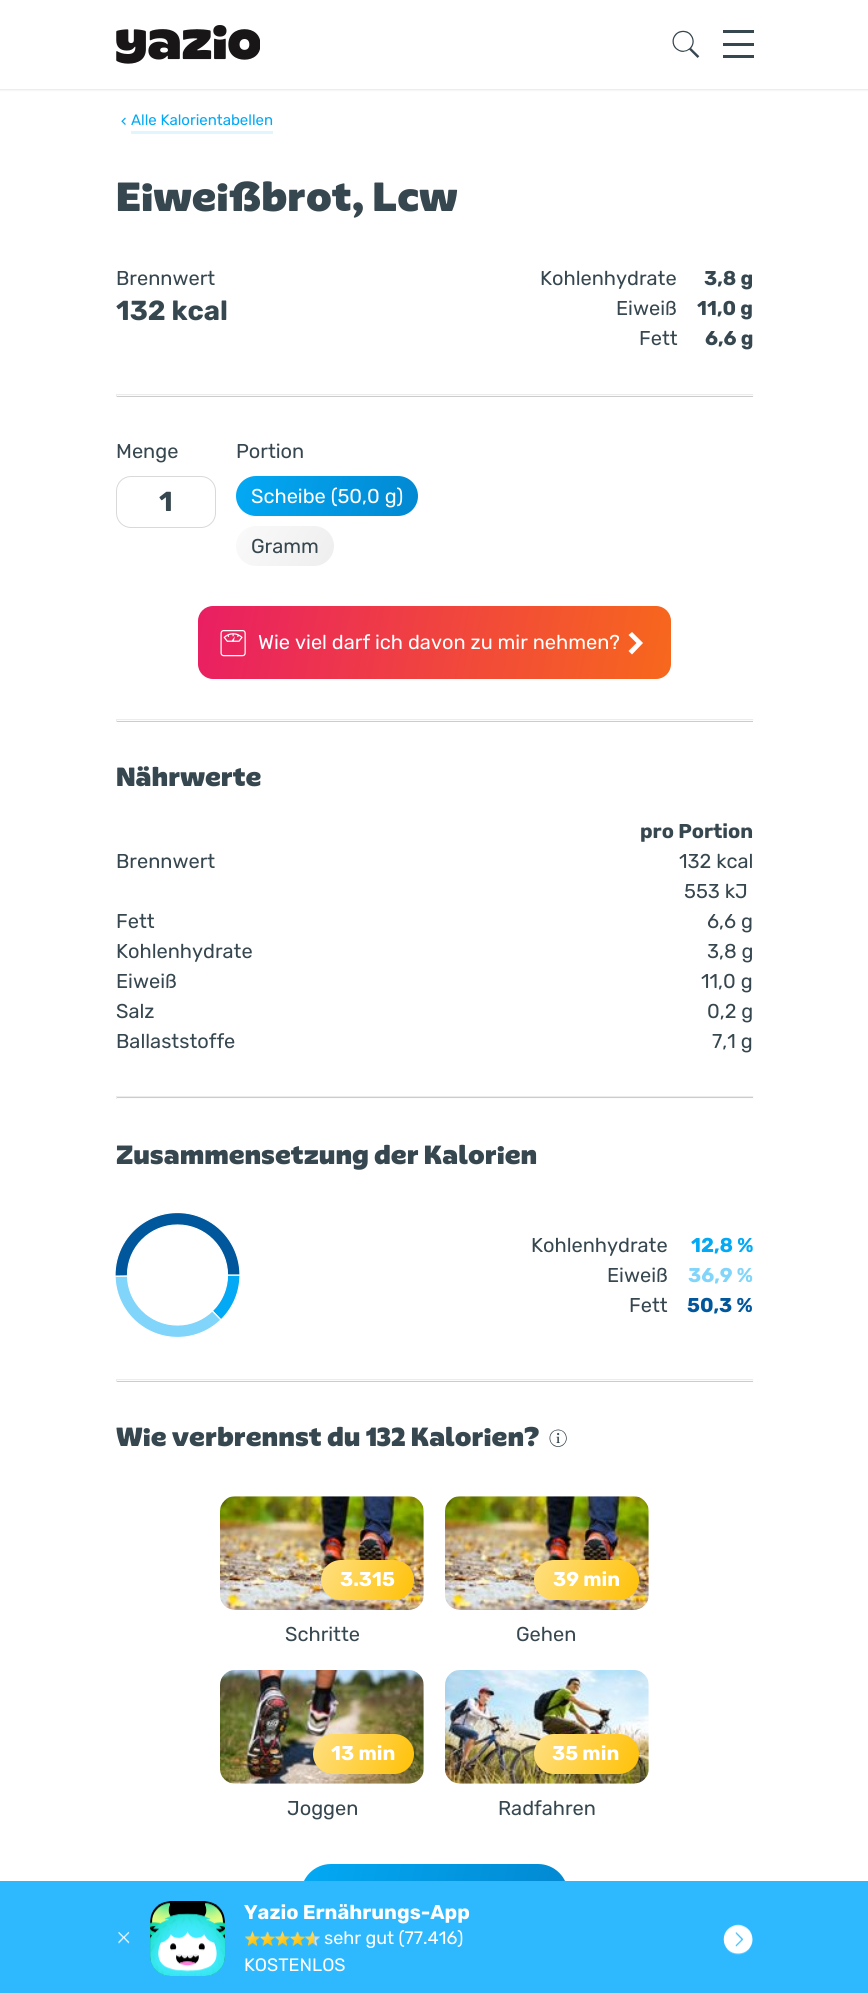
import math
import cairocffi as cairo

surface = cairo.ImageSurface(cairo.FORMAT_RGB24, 868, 1993)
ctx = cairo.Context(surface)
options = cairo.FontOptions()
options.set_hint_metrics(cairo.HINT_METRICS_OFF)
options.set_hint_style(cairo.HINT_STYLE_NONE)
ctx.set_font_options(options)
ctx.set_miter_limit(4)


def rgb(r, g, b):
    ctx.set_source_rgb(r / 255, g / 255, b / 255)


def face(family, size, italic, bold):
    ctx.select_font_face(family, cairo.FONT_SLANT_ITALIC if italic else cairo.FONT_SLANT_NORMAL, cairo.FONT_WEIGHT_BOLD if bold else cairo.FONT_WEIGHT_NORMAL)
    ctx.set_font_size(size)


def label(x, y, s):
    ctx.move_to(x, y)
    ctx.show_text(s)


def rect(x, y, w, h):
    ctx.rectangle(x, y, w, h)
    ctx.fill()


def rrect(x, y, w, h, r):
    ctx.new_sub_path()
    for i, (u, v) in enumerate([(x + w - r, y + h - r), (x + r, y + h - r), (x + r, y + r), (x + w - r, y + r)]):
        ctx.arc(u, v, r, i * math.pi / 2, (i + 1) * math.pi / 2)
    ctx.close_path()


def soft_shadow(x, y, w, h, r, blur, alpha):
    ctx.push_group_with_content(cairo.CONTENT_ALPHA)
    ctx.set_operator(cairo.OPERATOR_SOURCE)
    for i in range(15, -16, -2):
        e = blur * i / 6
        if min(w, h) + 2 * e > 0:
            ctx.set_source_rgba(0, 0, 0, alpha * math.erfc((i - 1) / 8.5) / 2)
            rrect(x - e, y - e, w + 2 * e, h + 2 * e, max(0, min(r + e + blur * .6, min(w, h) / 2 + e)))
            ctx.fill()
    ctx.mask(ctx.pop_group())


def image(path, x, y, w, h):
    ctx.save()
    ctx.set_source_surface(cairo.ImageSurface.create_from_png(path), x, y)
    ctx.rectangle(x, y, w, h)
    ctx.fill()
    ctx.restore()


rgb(255, 255, 255)
ctx.paint()
rgb(0, 0, 0)
soft_shadow(0, 1, 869, 89, 0, 1, 0.1)
rgb(255, 255, 255)
rect(0, 0, 868, 89)
image('image0.png', 116, 25, 144, 39)
image('image1.png', 672, 30, 28, 28)
rgb(55, 71, 79)
rect(723, 30, 31, 3)
rect(723, 43, 31, 3)
rect(723, 55, 31, 3)
image('image2.png', 121, 117, 5, 8)
rgb(225, 245, 254)
rect(131, 131, 142, 3)
face('Rubik', 15, 0, 0)
rgb(3, 169, 244)
label(131, 125, 'Alle Kalorientabellen')
face('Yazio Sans', 42.5, 0, 1)
rgb(55, 71, 79)
label(116, 211, 'Eiweißbrot, Lcw')
face('Rubik', 20, 0, 0)
label(116, 285, 'Brennwert')
face('Rubik', 27.5, 0, 1)
label(116, 320, '132 kcal')
face('Rubik', 20, 0, 0)
label(540, 285, 'Kohlenhydrate')
label(616, 315, 'Eiweiß')
label(639, 345, 'Fett')
face('Rubik', 20, 0, 1)
label(704, 285, '3,8 g')
label(697, 315, '11,0 g')
label(705, 345, '6,6 g')
rgb(204, 204, 204)
rect(116, 396, 638, 1)
rgb(236, 236, 236)
rect(116, 394, 638, 1)
rgb(252, 252, 252)
rect(753, 394, 1, 3)
rect(116, 395, 638, 1)
rgb(236, 236, 236)
rect(116, 394, 1, 3)
face('Rubik', 20, 0, 0)
rgb(55, 71, 79)
label(116, 458, 'Menge')
rrect(116.5, 476.5, 99, 51, 14.5)
rgb(217, 217, 217)
ctx.set_line_width(1)
ctx.stroke()
face('Rubik', 27.5, 0, 1)
rgb(55, 71, 79)
label(159, 511, '1')
face('Rubik', 20, 0, 0)
label(236, 458, 'Portion')
gradient = cairo.LinearGradient(236, 475, 417, 517)
gradient.add_color_stop_rgba(0, 0.012, 0.663, 0.957, 1)
gradient.add_color_stop_rgba(1, 0.008, 0.533, 0.82, 1)
ctx.set_source(gradient)
rrect(236, 476, 182, 40, 20)
ctx.fill()
rgb(255, 255, 255)
label(251, 503, 'Scheibe (50,0 g)')
gradient = cairo.LinearGradient(241, 519, 329, 574)
gradient.add_color_stop_rgba(0, 0.98, 0.98, 0.98, 1)
gradient.add_color_stop_rgba(1, 0.933, 0.933, 0.933, 1)
ctx.set_source(gradient)
rrect(236, 526, 98, 40, 20)
ctx.fill()
rgb(55, 71, 79)
label(251, 553, 'Gramm')
gradient = cairo.LinearGradient(199, 597, 669, 688)
gradient.add_color_stop_rgba(0, 0.914, 0.118, 0.388, 1)
gradient.add_color_stop_rgba(1, 0.969, 0.408, 0.11, 1)
ctx.set_source(gradient)
rrect(198, 606, 473, 73, 15)
ctx.fill()
image('image3.png', 220, 630, 26, 27)
rgb(255, 255, 255)
label(258, 649, 'Wie viel darf ich davon zu mir nehmen?')
ctx.new_path()
ctx.move_to(628.5, 651)
ctx.line_to(632, 654.5)
ctx.line_to(643, 643)
ctx.line_to(632, 632)
ctx.line_to(628.5, 635)
ctx.line_to(636.5, 643)
ctx.close_path()
ctx.fill()
rgb(204, 204, 204)
rect(116, 721, 638, 1)
rgb(236, 236, 236)
rect(116, 719, 638, 1)
rgb(252, 252, 252)
rect(753, 719, 1, 3)
rect(116, 720, 638, 1)
rgb(236, 236, 236)
rect(116, 719, 1, 3)
face('Yazio Sans', 27.5, 0, 1)
rgb(55, 71, 79)
label(116, 786, 'Nährwerte')
face('Rubik', 20, 0, 1)
label(640, 838, 'pro Portion')
face('Rubik', 20, 0, 0)
label(116, 868, 'Brennwert')
label(679, 868, '132 kcal')
label(684, 898, '553 kJ')
label(116, 928, 'Fett')
label(707, 928, '6,6 g')
label(116, 958, 'Kohlenhydrate')
label(707, 958, '3,8 g')
label(116, 988, 'Eiweiß')
label(701, 988, '11,0 g')
label(116, 1018, 'Salz')
label(707, 1018, '0,2 g')
label(116, 1048, 'Ballaststoffe')
label(712, 1048, '7,1 g')
rgb(204, 204, 204)
rect(116, 1097, 638, 1)
rgb(236, 236, 236)
rect(116, 1096, 638, 1)
rgb(252, 252, 252)
rect(753, 1096, 1, 3)
rect(116, 1098, 638, 1)
rgb(236, 236, 236)
rect(116, 1096, 1, 3)
face('Yazio Sans', 27.5, 0, 1)
rgb(55, 71, 79)
label(116, 1164, 'Zusammensetzung der Kalorien')
image('image4.png', 115, 1213, 125, 125)
face('Rubik', 20, 0, 0)
label(531, 1252, 'Kohlenhydrate')
label(607, 1282, 'Eiweiß')
label(629, 1312, 'Fett')
face('Rubik', 20, 0, 1)
rgb(3, 169, 244)
label(691, 1252, '12,8 %')
rgb(129, 212, 250)
label(688, 1282, '36,9 %')
rgb(1, 87, 155)
label(687, 1312, '50,3 %')
rgb(204, 204, 204)
rect(116, 1381, 638, 1)
rgb(236, 236, 236)
rect(116, 1379, 638, 1)
rgb(252, 252, 252)
rect(753, 1379, 1, 3)
rect(116, 1380, 638, 1)
rgb(236, 236, 236)
rect(116, 1379, 1, 3)
face('Yazio Sans', 27.5, 0, 1)
rgb(55, 71, 79)
label(116, 1446, 'Wie verbrennst du 132 Kalorien?')
image('image5.png', 549, 1429, 18, 18)
image('image6.png', 220, 1496, 204, 114)
gradient = cairo.LinearGradient(322, 1559, 413, 1601)
gradient.add_color_stop_rgba(0, 1, 0.878, 0.51, 1)
gradient.add_color_stop_rgba(1, 1, 0.757, 0.027, 1)
ctx.set_source(gradient)
rrect(321, 1560, 93, 40, 20)
ctx.fill()
face('Rubik', 20, 0, 1)
rgb(255, 255, 255)
label(340, 1586, '3.315')
face('Rubik', 20, 0, 0)
rgb(55, 71, 79)
label(285, 1641, 'Schritte')
image('image7.png', 445, 1496, 204, 114)
gradient = cairo.LinearGradient(535, 1556, 637, 1604)
gradient.add_color_stop_rgba(0, 1, 0.878, 0.51, 1)
gradient.add_color_stop_rgba(1, 1, 0.757, 0.027, 1)
ctx.set_source(gradient)
rrect(534, 1560, 105, 40, 20)
ctx.fill()
face('Rubik', 20, 0, 1)
rgb(255, 255, 255)
label(553, 1586, '39 min')
face('Rubik', 20, 0, 0)
rgb(55, 71, 79)
label(516, 1641, 'Gehen')
image('image8.png', 220, 1670, 204, 114)
gradient = cairo.LinearGradient(314, 1731, 412, 1777)
gradient.add_color_stop_rgba(0, 1, 0.878, 0.51, 1)
gradient.add_color_stop_rgba(1, 1, 0.757, 0.027, 1)
ctx.set_source(gradient)
rrect(313, 1734, 101, 40, 20)
ctx.fill()
face('Rubik', 20, 0, 1)
rgb(255, 255, 255)
label(331, 1760, '13 min')
face('Rubik', 20, 0, 0)
rgb(55, 71, 79)
label(287, 1815, 'Joggen')
image('image9.png', 445, 1670, 204, 114)
gradient = cairo.LinearGradient(535, 1730, 637, 1777)
gradient.add_color_stop_rgba(0, 1, 0.878, 0.51, 1)
gradient.add_color_stop_rgba(1, 1, 0.757, 0.027, 1)
ctx.set_source(gradient)
rrect(534, 1734, 105, 40, 20)
ctx.fill()
face('Rubik', 20, 0, 1)
rgb(255, 255, 255)
label(552, 1760, '35 min')
face('Rubik', 20, 0, 0)
rgb(55, 71, 79)
label(498, 1815, 'Radfahren')
gradient = cairo.LinearGradient(301, 1863, 567, 1924)
gradient.add_color_stop_rgba(0, 0.012, 0.663, 0.957, 1)
gradient.add_color_stop_rgba(1, 0.008, 0.533, 0.82, 1)
ctx.set_source(gradient)
rrect(301, 1864, 267, 60, 30)
ctx.fill()
rgb(46, 185, 255)
rect(0, 1881, 868, 112)
image('image10.png', 118, 1931, 12, 13)
image('image11.png', 150, 1901, 75, 75)
face('Rubik', 20, 0, 1)
rgb(255, 255, 255)
label(244, 1919, 'Yazio Ernährungs-App')
image('image12.png', 245, 1931, 15, 16)
image('image13.png', 259, 1931, 16, 15)
image('image14.png', 275, 1931, 15, 16)
image('image15.png', 289, 1931, 16, 15)
image('image16.png', 305, 1931, 15, 16)
face('Rubik', 18, 0, 0)
label(324, 1944, 'sehr gut (77.416)')
label(244, 1971, 'KOSTENLOS')
image('image17.png', 723, 1924, 30, 31)
surface.write_to_png('render.png')
